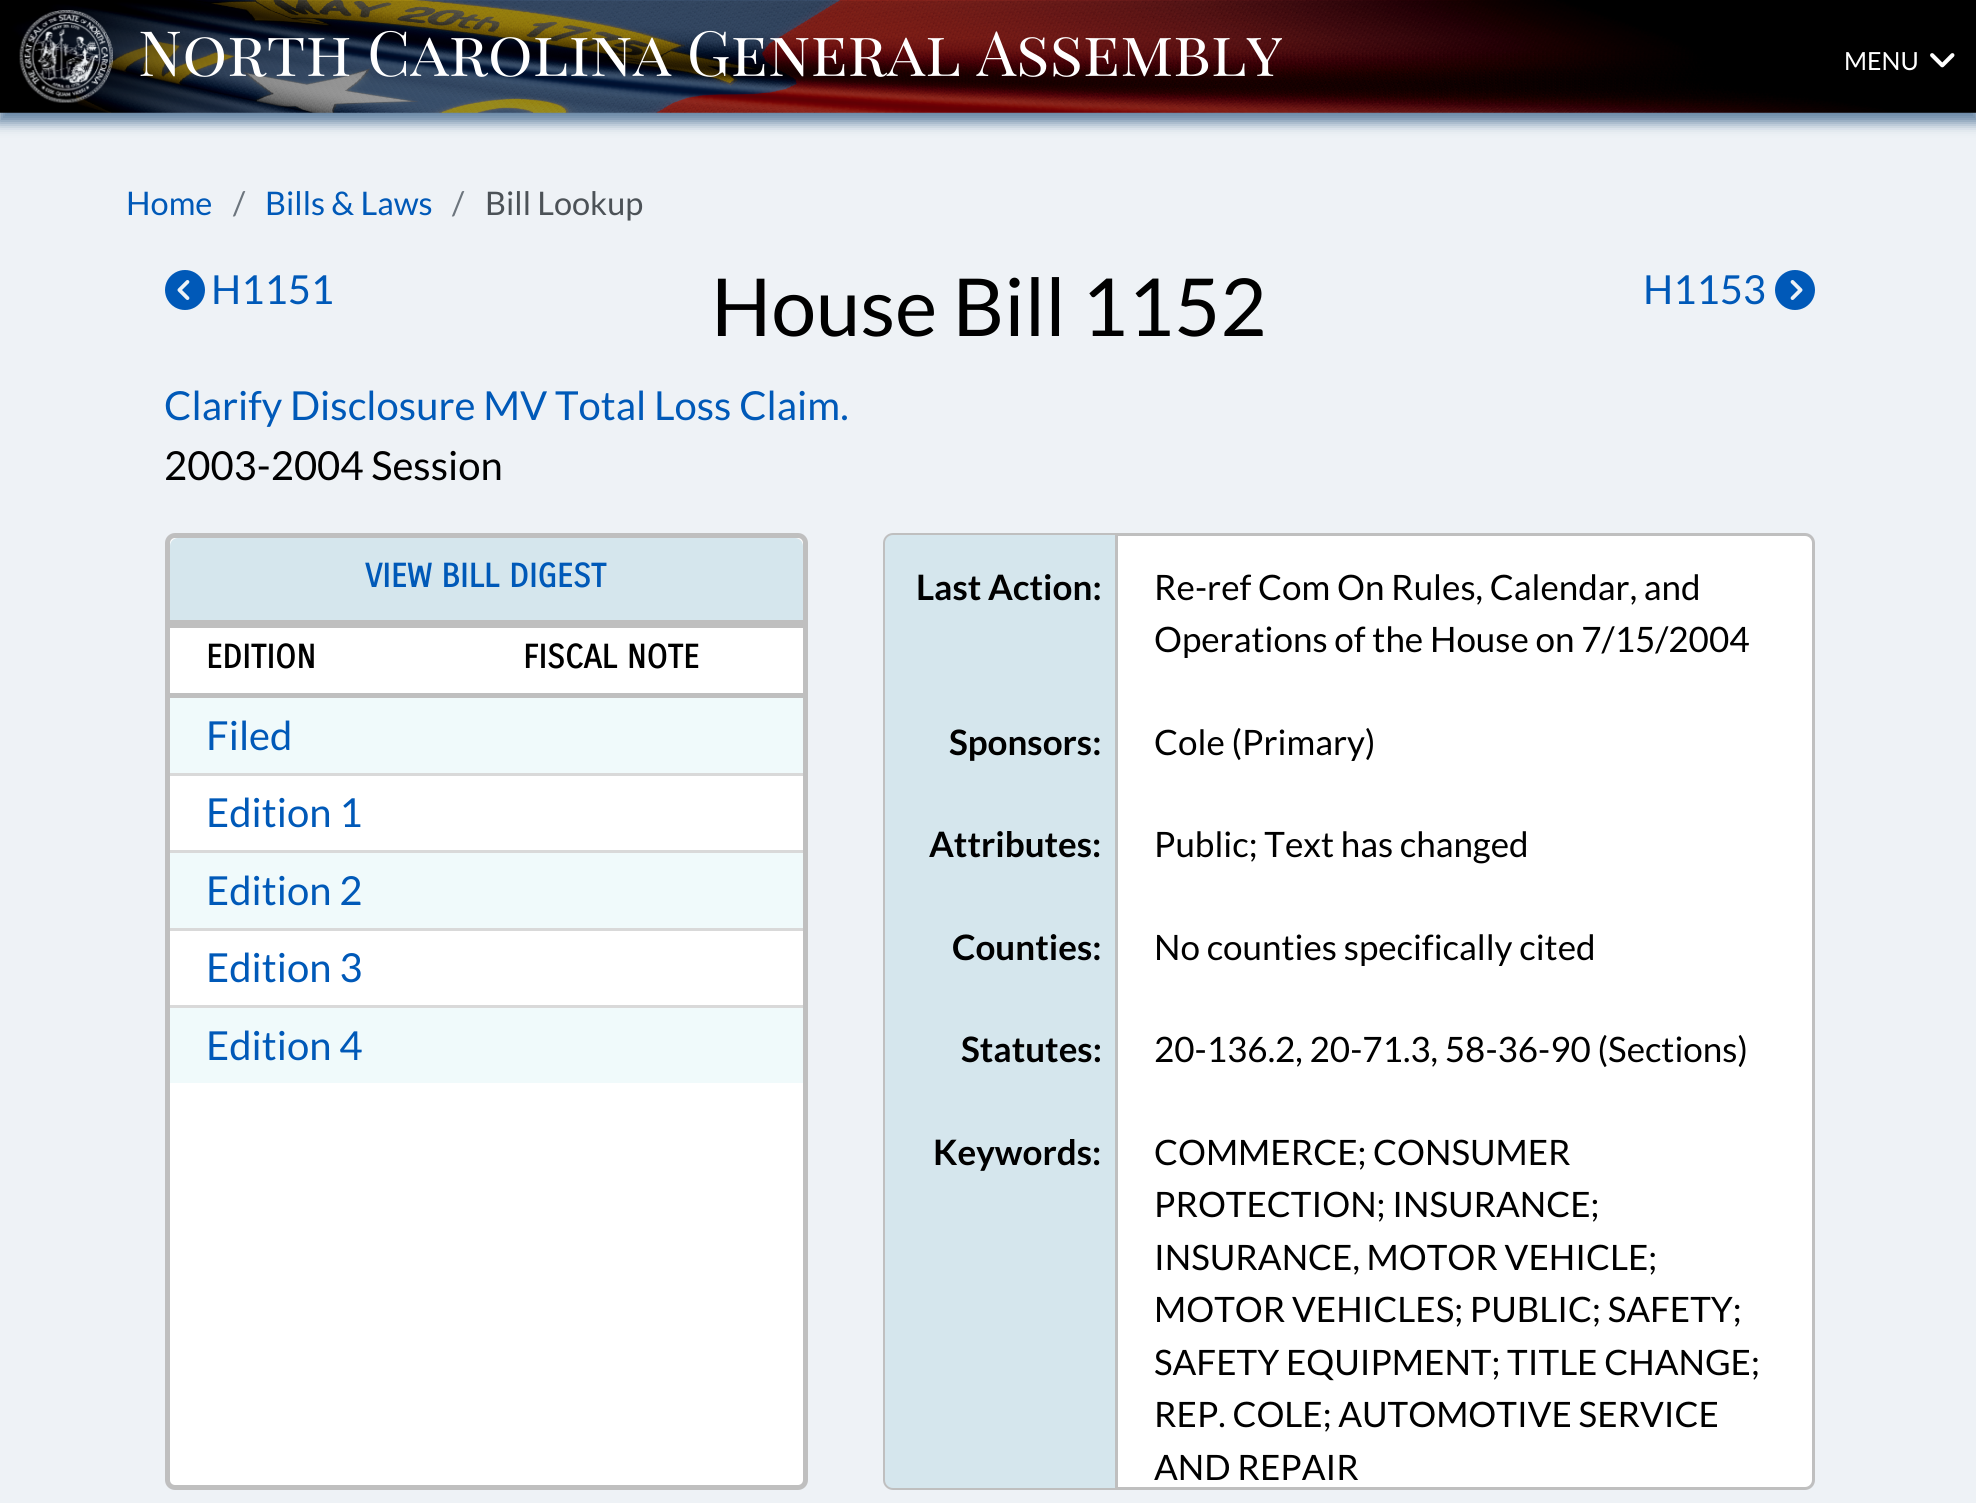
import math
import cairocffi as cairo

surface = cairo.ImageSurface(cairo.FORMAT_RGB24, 1976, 1503)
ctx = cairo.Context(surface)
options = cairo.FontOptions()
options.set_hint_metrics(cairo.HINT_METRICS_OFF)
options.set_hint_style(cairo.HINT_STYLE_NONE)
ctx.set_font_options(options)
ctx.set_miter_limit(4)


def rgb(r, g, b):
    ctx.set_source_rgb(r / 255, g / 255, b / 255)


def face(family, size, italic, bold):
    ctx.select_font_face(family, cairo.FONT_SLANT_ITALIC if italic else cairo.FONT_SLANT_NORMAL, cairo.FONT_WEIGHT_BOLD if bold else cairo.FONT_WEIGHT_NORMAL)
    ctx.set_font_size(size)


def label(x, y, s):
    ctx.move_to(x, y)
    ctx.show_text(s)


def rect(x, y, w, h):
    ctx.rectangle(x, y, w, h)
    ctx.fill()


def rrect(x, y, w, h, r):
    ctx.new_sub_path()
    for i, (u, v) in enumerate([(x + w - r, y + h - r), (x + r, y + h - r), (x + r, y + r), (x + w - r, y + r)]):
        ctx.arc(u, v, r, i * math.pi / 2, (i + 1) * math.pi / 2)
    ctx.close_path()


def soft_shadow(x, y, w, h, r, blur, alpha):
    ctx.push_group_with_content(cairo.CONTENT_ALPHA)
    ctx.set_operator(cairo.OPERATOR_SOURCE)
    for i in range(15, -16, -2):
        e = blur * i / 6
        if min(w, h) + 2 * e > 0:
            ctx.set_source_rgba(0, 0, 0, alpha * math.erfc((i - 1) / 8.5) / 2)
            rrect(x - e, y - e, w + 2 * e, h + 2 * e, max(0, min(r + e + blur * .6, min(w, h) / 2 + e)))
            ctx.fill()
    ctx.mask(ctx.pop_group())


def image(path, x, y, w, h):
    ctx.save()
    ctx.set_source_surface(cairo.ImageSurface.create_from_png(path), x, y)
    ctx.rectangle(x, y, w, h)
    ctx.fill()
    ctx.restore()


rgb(238, 242, 246)
ctx.paint()
rgb(0, 51, 102)
soft_shadow(-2, 5, 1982, 118, 0, 6, 0.56)
image('image0.png', 0, 0, 1976, 113)
image('image1.png', 19, 10, 94, 93)
face('Playfair Display SC', 62.5, 0, 0)
rgb(255, 255, 255)
label(138, 76, 'North Carolina General Assembly')
face('Lato', 25, 0, 0)
label(1844, 70, 'MENU')
image('image2.png', 1930, 53, 25, 15)
face('Lato', 32.5, 0, 0)
rgb(0, 89, 184)
label(126, 215, 'Home')
rgb(108, 117, 125)
label(233, 215, '/')
rgb(0, 89, 184)
label(265, 215, 'Bills & Laws')
rgb(108, 117, 125)
label(452, 215, '/')
rgb(76, 82, 87)
label(485, 215, 'Bill Lookup')
image('image3.png', 165, 270, 40, 40)
face('Lato', 40, 0, 0)
rgb(0, 89, 184)
label(211, 304, 'H1151')
face('Lato', 80, 0, 0)
rgb(0, 0, 0)
label(711, 336, 'House Bill 1152')
face('Lato', 40, 0, 0)
rgb(0, 89, 184)
label(1643, 304, 'H1153')
image('image4.png', 1775, 270, 40, 40)
label(164, 420, 'Clarify Disclosure MV Total Loss Claim.')
rgb(0, 0, 0)
label(164, 480, '2003-2004 Session')
rgb(255, 255, 255)
rrect(167.5, 535.5, 638, 952, 7.5)
ctx.fill_preserve()
rgb(191, 191, 191)
ctx.set_line_width(5)
ctx.stroke()
rgb(213, 230, 237)
ctx.new_path()
ctx.move_to(178, 538)
ctx.line_to(795, 538)
ctx.curve_to(799.5, 538, 803, 541.5, 803, 546)
ctx.line_to(803, 625)
ctx.line_to(170, 625)
ctx.line_to(170, 546)
ctx.curve_to(170, 541.5, 173.5, 538, 178, 538)
ctx.close_path()
ctx.fill()
rgb(191, 191, 191)
rect(170, 620, 633, 8)
face('Carrois Gothic', 32.5, 0, 1)
rgb(0, 89, 184)
label(365, 587, 'VIEW BILL DIGEST')
rgb(191, 191, 191)
rect(170, 693, 633, 5)
rgb(0, 0, 0)
label(206, 668, 'EDITION')
label(523, 668, 'FISCAL NOTE')
rgb(240, 250, 251)
rect(170, 698, 633, 75)
face('Lato', 40, 0, 0)
rgb(0, 89, 184)
label(206, 750, 'Filed')
rgb(217, 217, 217)
rect(170, 773, 633, 3)
rgb(0, 89, 184)
label(206, 827, 'Edition 1')
rgb(240, 250, 251)
rect(170, 853, 633, 75)
rgb(217, 217, 217)
rect(170, 850, 633, 3)
rgb(0, 89, 184)
label(206, 905, 'Edition 2')
rgb(217, 217, 217)
rect(170, 928, 633, 3)
rgb(0, 89, 184)
label(206, 982, 'Edition 3')
rgb(240, 250, 251)
rect(170, 1008, 633, 75)
rgb(217, 217, 217)
rect(170, 1005, 633, 3)
rgb(0, 89, 184)
label(206, 1060, 'Edition 4')
rgb(255, 255, 255)
rrect(884.5, 534.5, 929, 954, 8.5)
ctx.fill_preserve()
rgb(191, 191, 191)
ctx.set_line_width(3)
ctx.stroke()
rgb(213, 230, 237)
ctx.new_path()
ctx.move_to(893, 535)
ctx.line_to(1118, 535)
ctx.line_to(1118, 690)
ctx.line_to(885, 690)
ctx.line_to(885, 543)
ctx.curve_to(885, 538.5, 888.5, 535, 893, 535)
ctx.close_path()
ctx.fill()
rgb(191, 191, 191)
rect(1115, 535, 3, 565)
face('Lato', 35, 0, 1)
rgb(0, 0, 0)
label(916, 600, 'Last Action:')
face('Lato', 35, 0, 0)
label(1154, 600, 'Re-ref Com On Rules, Calendar, and')
label(1154, 652, 'Operations of the House on 7/15/2004')
rgb(213, 230, 237)
rect(885, 690, 230, 410)
face('Lato', 35, 0, 1)
rgb(0, 0, 0)
label(949, 755, 'Sponsors:')
face('Lato', 35, 0, 0)
label(1154, 755, 'Cole (Primary)')
face('Lato', 35, 0, 1)
label(929, 857, 'Attributes:')
face('Lato', 35, 0, 0)
label(1154, 857, 'Public; Text has changed')
face('Lato', 35, 0, 1)
label(952, 960, 'Counties:')
face('Lato', 35, 0, 0)
label(1154, 960, 'No counties specifically cited')
face('Lato', 35, 0, 1)
label(961, 1062, 'Statutes:')
face('Lato', 35, 0, 0)
label(1154, 1062, '20-136.2, 20-71.3, 58-36-90 (Sections)')
rgb(213, 230, 237)
ctx.new_path()
ctx.move_to(885, 1100)
ctx.line_to(1118, 1100)
ctx.line_to(1118, 1488)
ctx.line_to(893, 1488)
ctx.curve_to(888.5, 1488, 885, 1484.5, 885, 1480)
ctx.close_path()
ctx.fill()
rgb(191, 191, 191)
rect(1115, 1100, 3, 388)
face('Lato', 35, 0, 1)
rgb(0, 0, 0)
label(933, 1165, 'Keywords:')
face('Lato', 35, 0, 0)
label(1154, 1165, 'COMMERCE; CONSUMER')
label(1154, 1217, 'PROTECTION; INSURANCE;')
label(1154, 1270, 'INSURANCE, MOTOR VEHICLE;')
label(1154, 1322, 'MOTOR VEHICLES; PUBLIC; SAFETY;')
label(1154, 1375, 'SAFETY EQUIPMENT; TITLE CHANGE;')
label(1154, 1427, 'REP. COLE; AUTOMOTIVE SERVICE')
label(1154, 1480, 'AND REPAIR')
surface.write_to_png('render.png')
